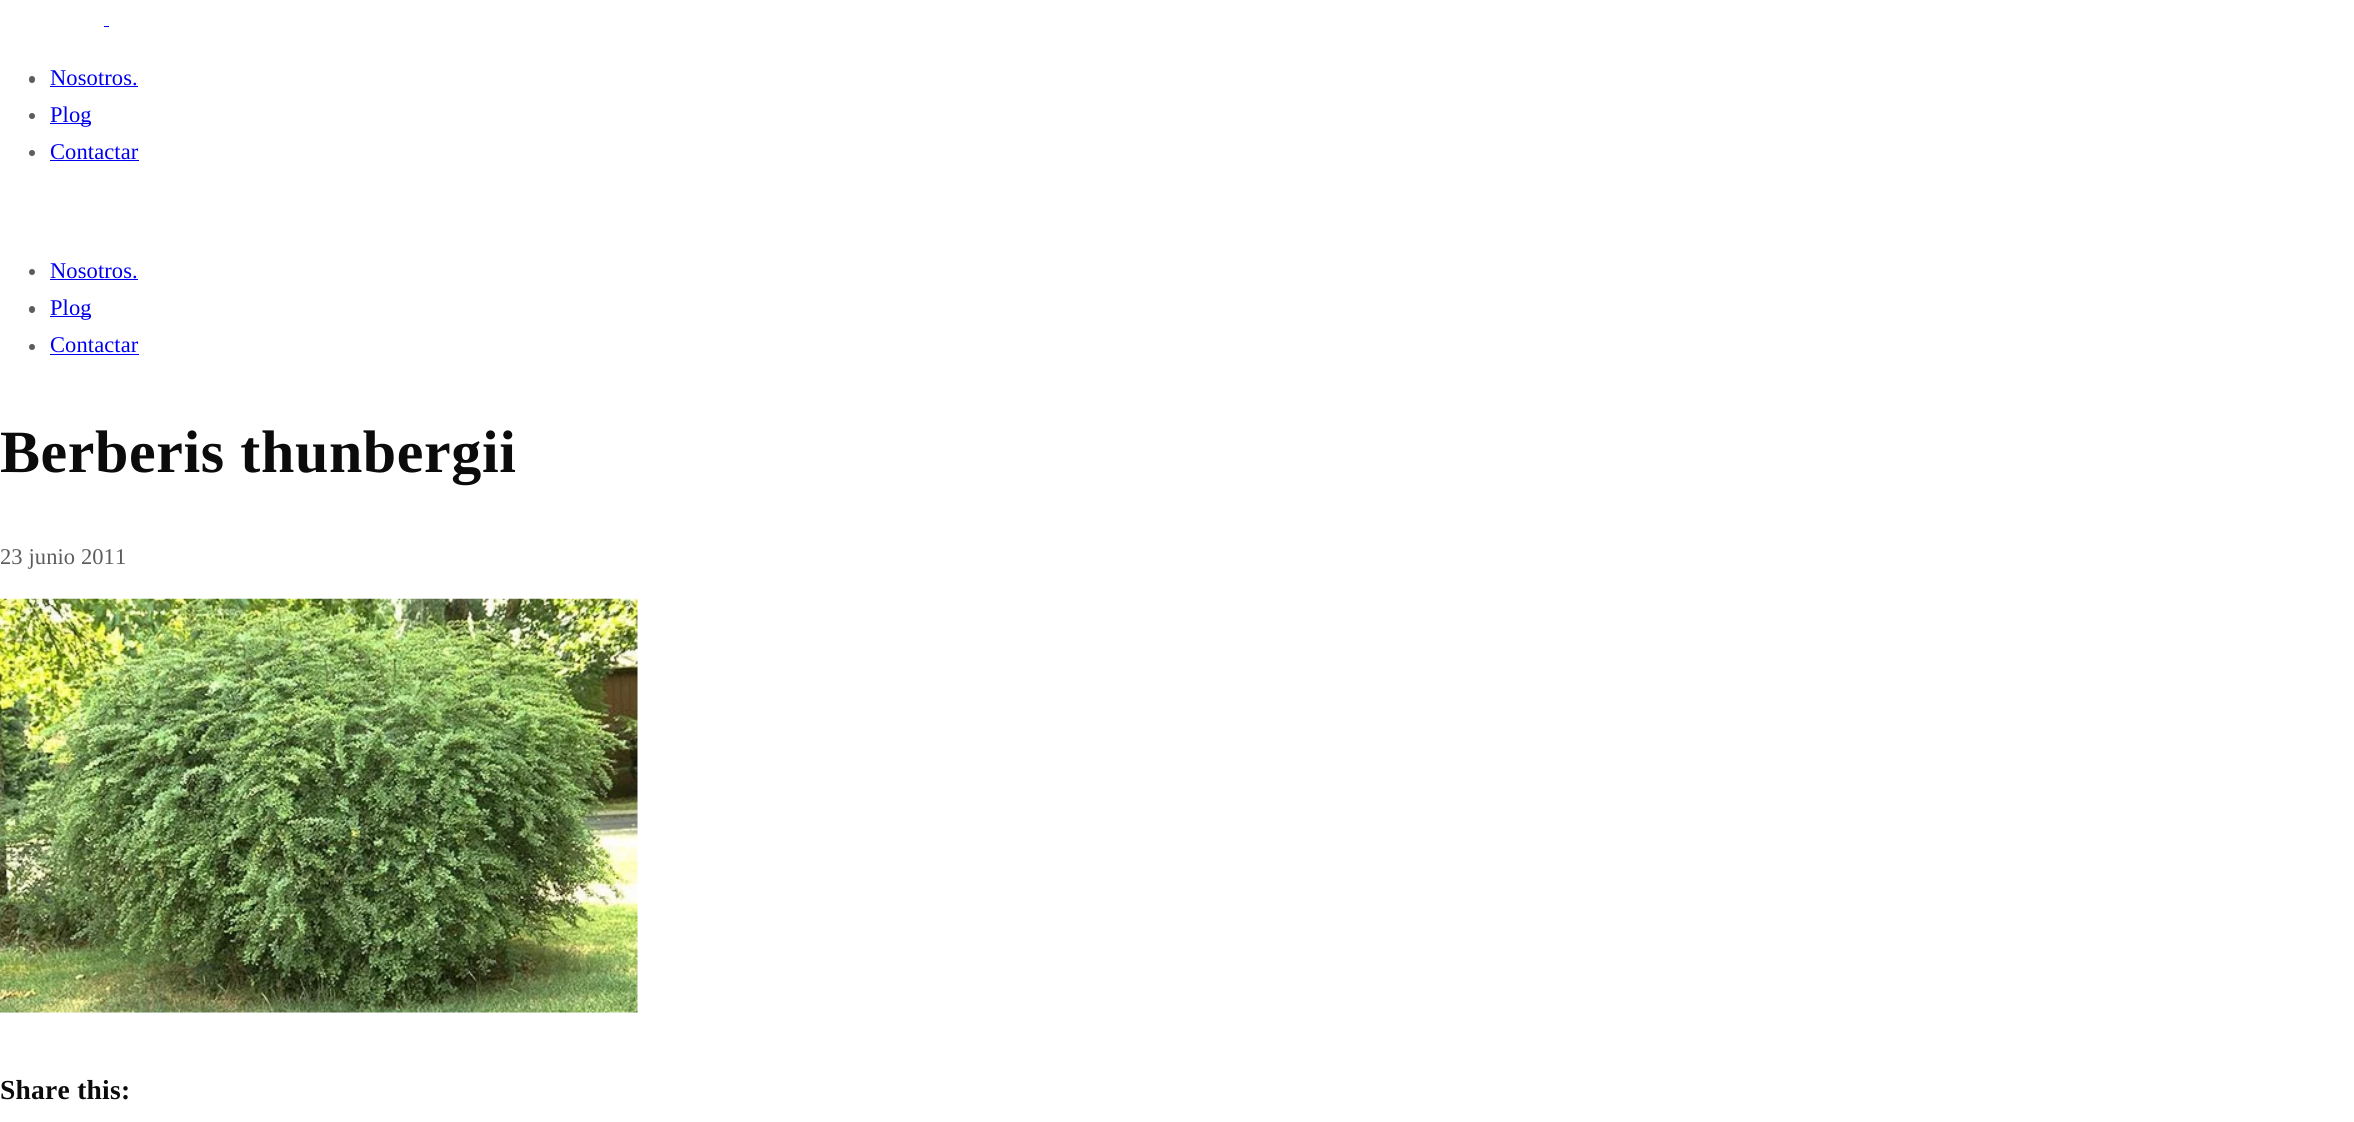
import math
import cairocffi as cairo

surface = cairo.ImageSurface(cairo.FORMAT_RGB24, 2354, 1122)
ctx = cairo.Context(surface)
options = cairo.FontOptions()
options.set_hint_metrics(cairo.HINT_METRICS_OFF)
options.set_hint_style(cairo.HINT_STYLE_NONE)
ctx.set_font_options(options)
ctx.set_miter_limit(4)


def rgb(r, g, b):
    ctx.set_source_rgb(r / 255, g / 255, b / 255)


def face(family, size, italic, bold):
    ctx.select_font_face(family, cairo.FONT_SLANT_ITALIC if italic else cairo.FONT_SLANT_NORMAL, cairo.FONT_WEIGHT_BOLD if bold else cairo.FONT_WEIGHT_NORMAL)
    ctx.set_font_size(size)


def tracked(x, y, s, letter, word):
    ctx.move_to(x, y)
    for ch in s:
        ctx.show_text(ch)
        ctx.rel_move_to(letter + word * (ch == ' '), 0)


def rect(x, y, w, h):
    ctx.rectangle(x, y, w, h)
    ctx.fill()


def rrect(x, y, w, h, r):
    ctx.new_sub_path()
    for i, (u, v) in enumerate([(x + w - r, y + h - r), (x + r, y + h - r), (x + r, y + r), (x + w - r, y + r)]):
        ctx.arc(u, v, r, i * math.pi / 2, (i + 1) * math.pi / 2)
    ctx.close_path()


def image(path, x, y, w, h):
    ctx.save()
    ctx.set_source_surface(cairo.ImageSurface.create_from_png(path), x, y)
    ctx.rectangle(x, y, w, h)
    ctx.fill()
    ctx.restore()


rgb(255, 255, 255)
ctx.paint()
rgb(0, 0, 238)
rect(104, 26, 5, 1)
rgb(92, 92, 92)
rrect(29, 76, 6, 7, 3)
ctx.fill()
face('Liberation Serif', 22.5, 0, 0)
rgb(0, 0, 238)
tracked(50, 85, 'Nosotros.', 0.1, 0)
rect(50, 86, 88, 1)
rgb(92, 92, 92)
ctx.new_path()
ctx.arc(32, 116, 3, 0, 2 * math.pi)
ctx.fill()
rgb(0, 0, 238)
rect(50, 123, 41, 1)
tracked(50, 122, 'Plog', 0.1, 0)
rgb(92, 92, 92)
ctx.new_path()
ctx.arc(32, 153, 3, 0, 2 * math.pi)
ctx.fill()
rgb(0, 0, 238)
tracked(50, 159, 'Contactar', 0.1, 0)
rect(50, 160, 89, 1)
rgb(92, 92, 92)
ctx.new_path()
ctx.arc(32, 272, 3, 0, 2 * math.pi)
ctx.fill()
rgb(0, 0, 238)
tracked(50, 278, 'Nosotros.', 0.1, 0)
rect(50, 279, 88, 1)
rgb(92, 92, 92)
rrect(29, 306, 6, 7, 3)
ctx.fill()
rgb(0, 0, 238)
rect(50, 316, 41, 1)
tracked(50, 315, 'Plog', 0.1, 0)
rgb(92, 92, 92)
ctx.new_path()
ctx.arc(32, 347, 3, 0, 2 * math.pi)
ctx.fill()
rgb(0, 0, 238)
tracked(50, 352, 'Contactar', 0.1, 0)
rect(50, 354, 89, 1)
face('Liberation Serif', 60, 0, 1)
rgb(11, 11, 11)
tracked(0, 472, 'Berberis thunbergii', 0.6, 0)
face('Liberation Serif', 22.5, 0, 0)
rgb(92, 92, 92)
tracked(0, 564, '23 junio 2011', 0.1, 0)
image('image0.png', 0, 598, 638, 415)
face('Liberation Serif', 27.5, 0, 1)
rgb(11, 11, 11)
tracked(0, 1099, 'Share this:', 0.25, 0)
surface.write_to_png('render.png')
